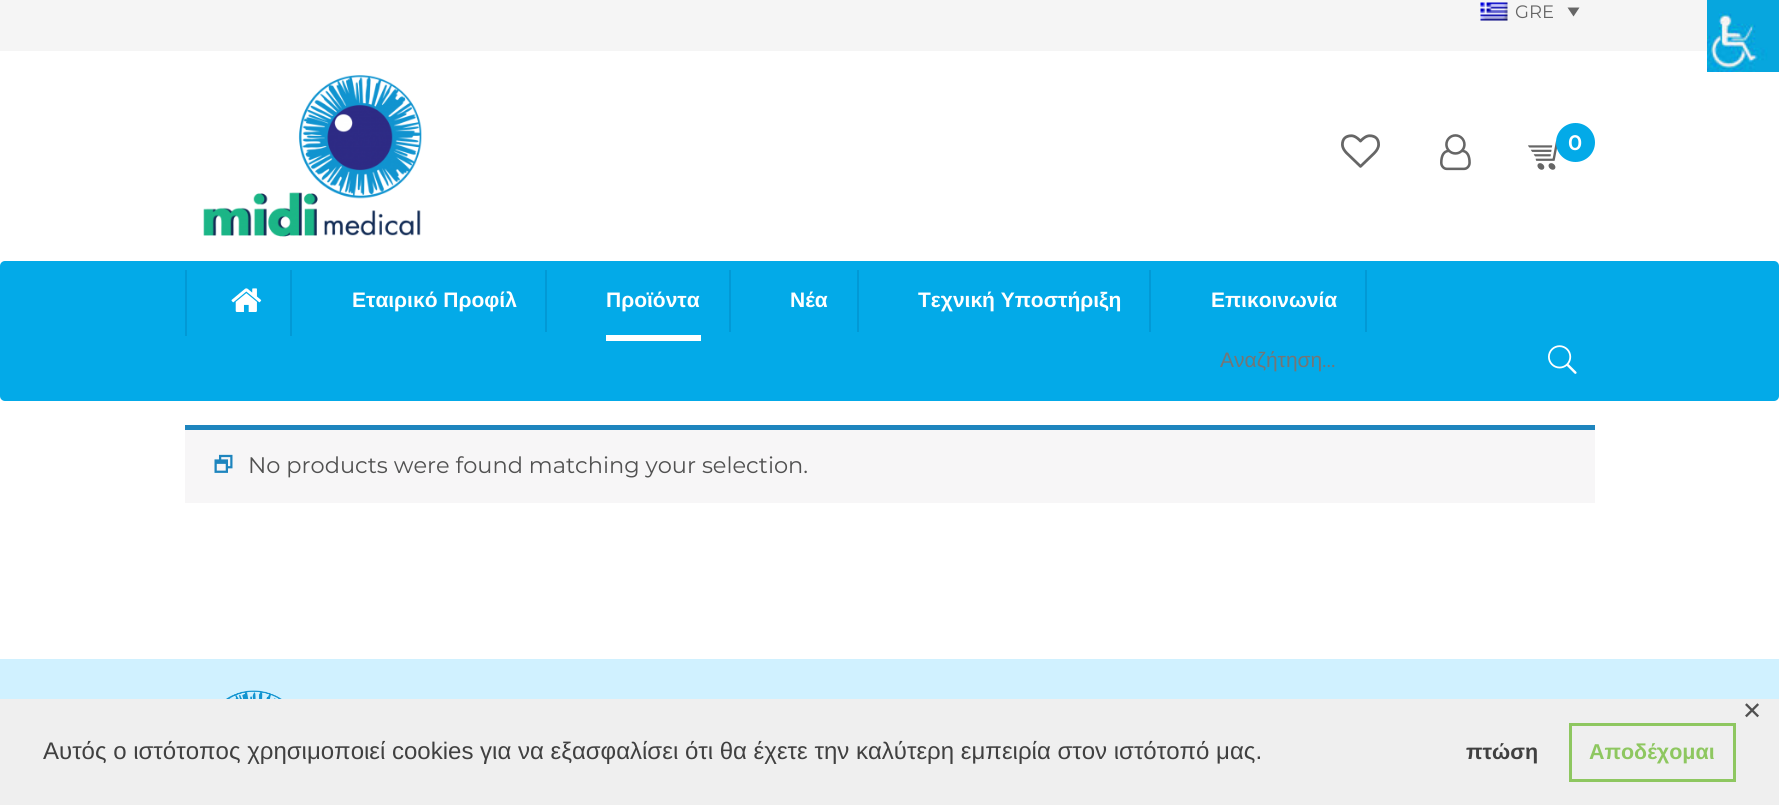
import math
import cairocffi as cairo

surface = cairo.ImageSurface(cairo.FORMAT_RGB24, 1779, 805)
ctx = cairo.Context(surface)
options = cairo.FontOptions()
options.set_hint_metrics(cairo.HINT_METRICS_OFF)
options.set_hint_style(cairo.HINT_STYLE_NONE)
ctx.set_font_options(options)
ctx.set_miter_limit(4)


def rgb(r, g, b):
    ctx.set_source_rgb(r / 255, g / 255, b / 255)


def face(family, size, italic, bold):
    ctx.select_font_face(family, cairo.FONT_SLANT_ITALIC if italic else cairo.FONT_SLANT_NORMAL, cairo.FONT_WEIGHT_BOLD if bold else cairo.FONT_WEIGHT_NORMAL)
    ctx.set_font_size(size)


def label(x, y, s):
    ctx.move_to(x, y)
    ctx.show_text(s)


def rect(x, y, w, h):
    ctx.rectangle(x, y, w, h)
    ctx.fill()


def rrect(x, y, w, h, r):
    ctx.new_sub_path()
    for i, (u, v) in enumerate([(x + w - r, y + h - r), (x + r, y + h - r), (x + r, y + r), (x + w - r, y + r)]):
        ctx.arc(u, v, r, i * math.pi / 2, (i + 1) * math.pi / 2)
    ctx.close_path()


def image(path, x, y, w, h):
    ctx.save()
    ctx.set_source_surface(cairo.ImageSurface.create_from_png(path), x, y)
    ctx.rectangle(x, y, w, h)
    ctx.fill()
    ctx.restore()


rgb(255, 255, 255)
ctx.paint()
rgb(245, 245, 245)
rect(0, 0, 1707, 51)
image('image0.png', 1480, 2, 28, 19)
face('Montserrat', 18, 0, 0)
rgb(102, 102, 102)
label(1515, 18, 'GRE')
ctx.new_path()
ctx.move_to(1567.5, 7.5)
ctx.line_to(1579.5, 7.5)
ctx.line_to(1573.5, 16.5)
ctx.close_path()
ctx.fill()
image('image1.png', 203, 75, 219, 162)
image('image2.png', 1341, 134, 39, 34)
image('image3.png', 1440, 134, 31, 37)
image('image4.png', 1528, 140, 29, 30)
rgb(3, 170, 232)
ctx.arc(1575.5, 142.5, 19.5, 0, 2 * math.pi)
ctx.fill()
face('Montserrat SemiBold', 21, 0, 0)
rgb(255, 255, 255)
label(1568, 150, '0')
rgb(3, 170, 232)
rrect(0, 261, 1779, 140, 5)
ctx.fill()
rgb(2, 153, 213)
rect(185, 270, 2, 66)
image('image5.png', 231, 288, 31, 24)
rect(290, 270, 2, 66)
face('Liberation Sans', 21, 0, 1)
rgb(255, 255, 255)
label(352, 307, 'Εταιρικό Προφίλ')
rgb(2, 153, 213)
rect(545, 270, 2, 62)
rgb(255, 255, 255)
label(606, 307, 'Προϊόντα')
rgb(2, 153, 213)
rect(729, 270, 2, 62)
rgb(255, 255, 255)
rect(606, 335, 95, 6)
label(790, 307, 'Νέα')
rgb(2, 153, 213)
rect(857, 270, 2, 62)
rgb(255, 255, 255)
label(918, 307, 'Τεχνική Υποστήριξη')
rgb(2, 153, 213)
rect(1149, 270, 2, 62)
rgb(255, 255, 255)
label(1211, 307, 'Επικοινωνία')
rgb(2, 153, 213)
rect(1365, 270, 2, 62)
face('Liberation Sans', 21, 0, 0)
rgb(117, 117, 117)
label(1220, 367, 'Αναζήτηση')
face('Montserrat', 21, 0, 0)
label(1322, 367, '...')
image('image6.png', 1548, 345, 29, 29)
rgb(247, 246, 247)
rect(185, 430, 1410, 73)
rgb(30, 133, 190)
rect(185, 425, 1410, 5)
image('image7.png', 214, 454, 19, 19)
face('Montserrat', 22.5, 0, 0)
rgb(81, 81, 81)
label(248, 473, 'No products were found matching your selection.')
rgb(208, 241, 255)
rect(0, 659, 1779, 40)
image('image8.png', 226, 690, 56, 9)
image('image9.png', 1707, 0, 72, 72)
rgb(239, 239, 239)
rect(0, 699, 1779, 106)
face('DejaVu Sans', 24, 0, 0)
rgb(81, 81, 81)
label(1742, 719, '✕')
face('Liberation Sans', 24, 0, 0)
rgb(64, 64, 64)
label(43, 759, 'Αυτός ο ιστότοπος χρησιμοποιεί cookies για να εξασφαλίσει ότι θα έχετε την καλύτερη εμπειρία στον ιστότοπό μας.')
face('Liberation Sans', 21.5, 0, 1)
label(1466, 759, 'πτώση')
ctx.rectangle(1570.5, 724.5, 164, 56)
rgb(142, 199, 96)
ctx.set_line_width(3)
ctx.stroke()
label(1589, 759, 'Αποδέχομαι')
surface.write_to_png('render.png')
